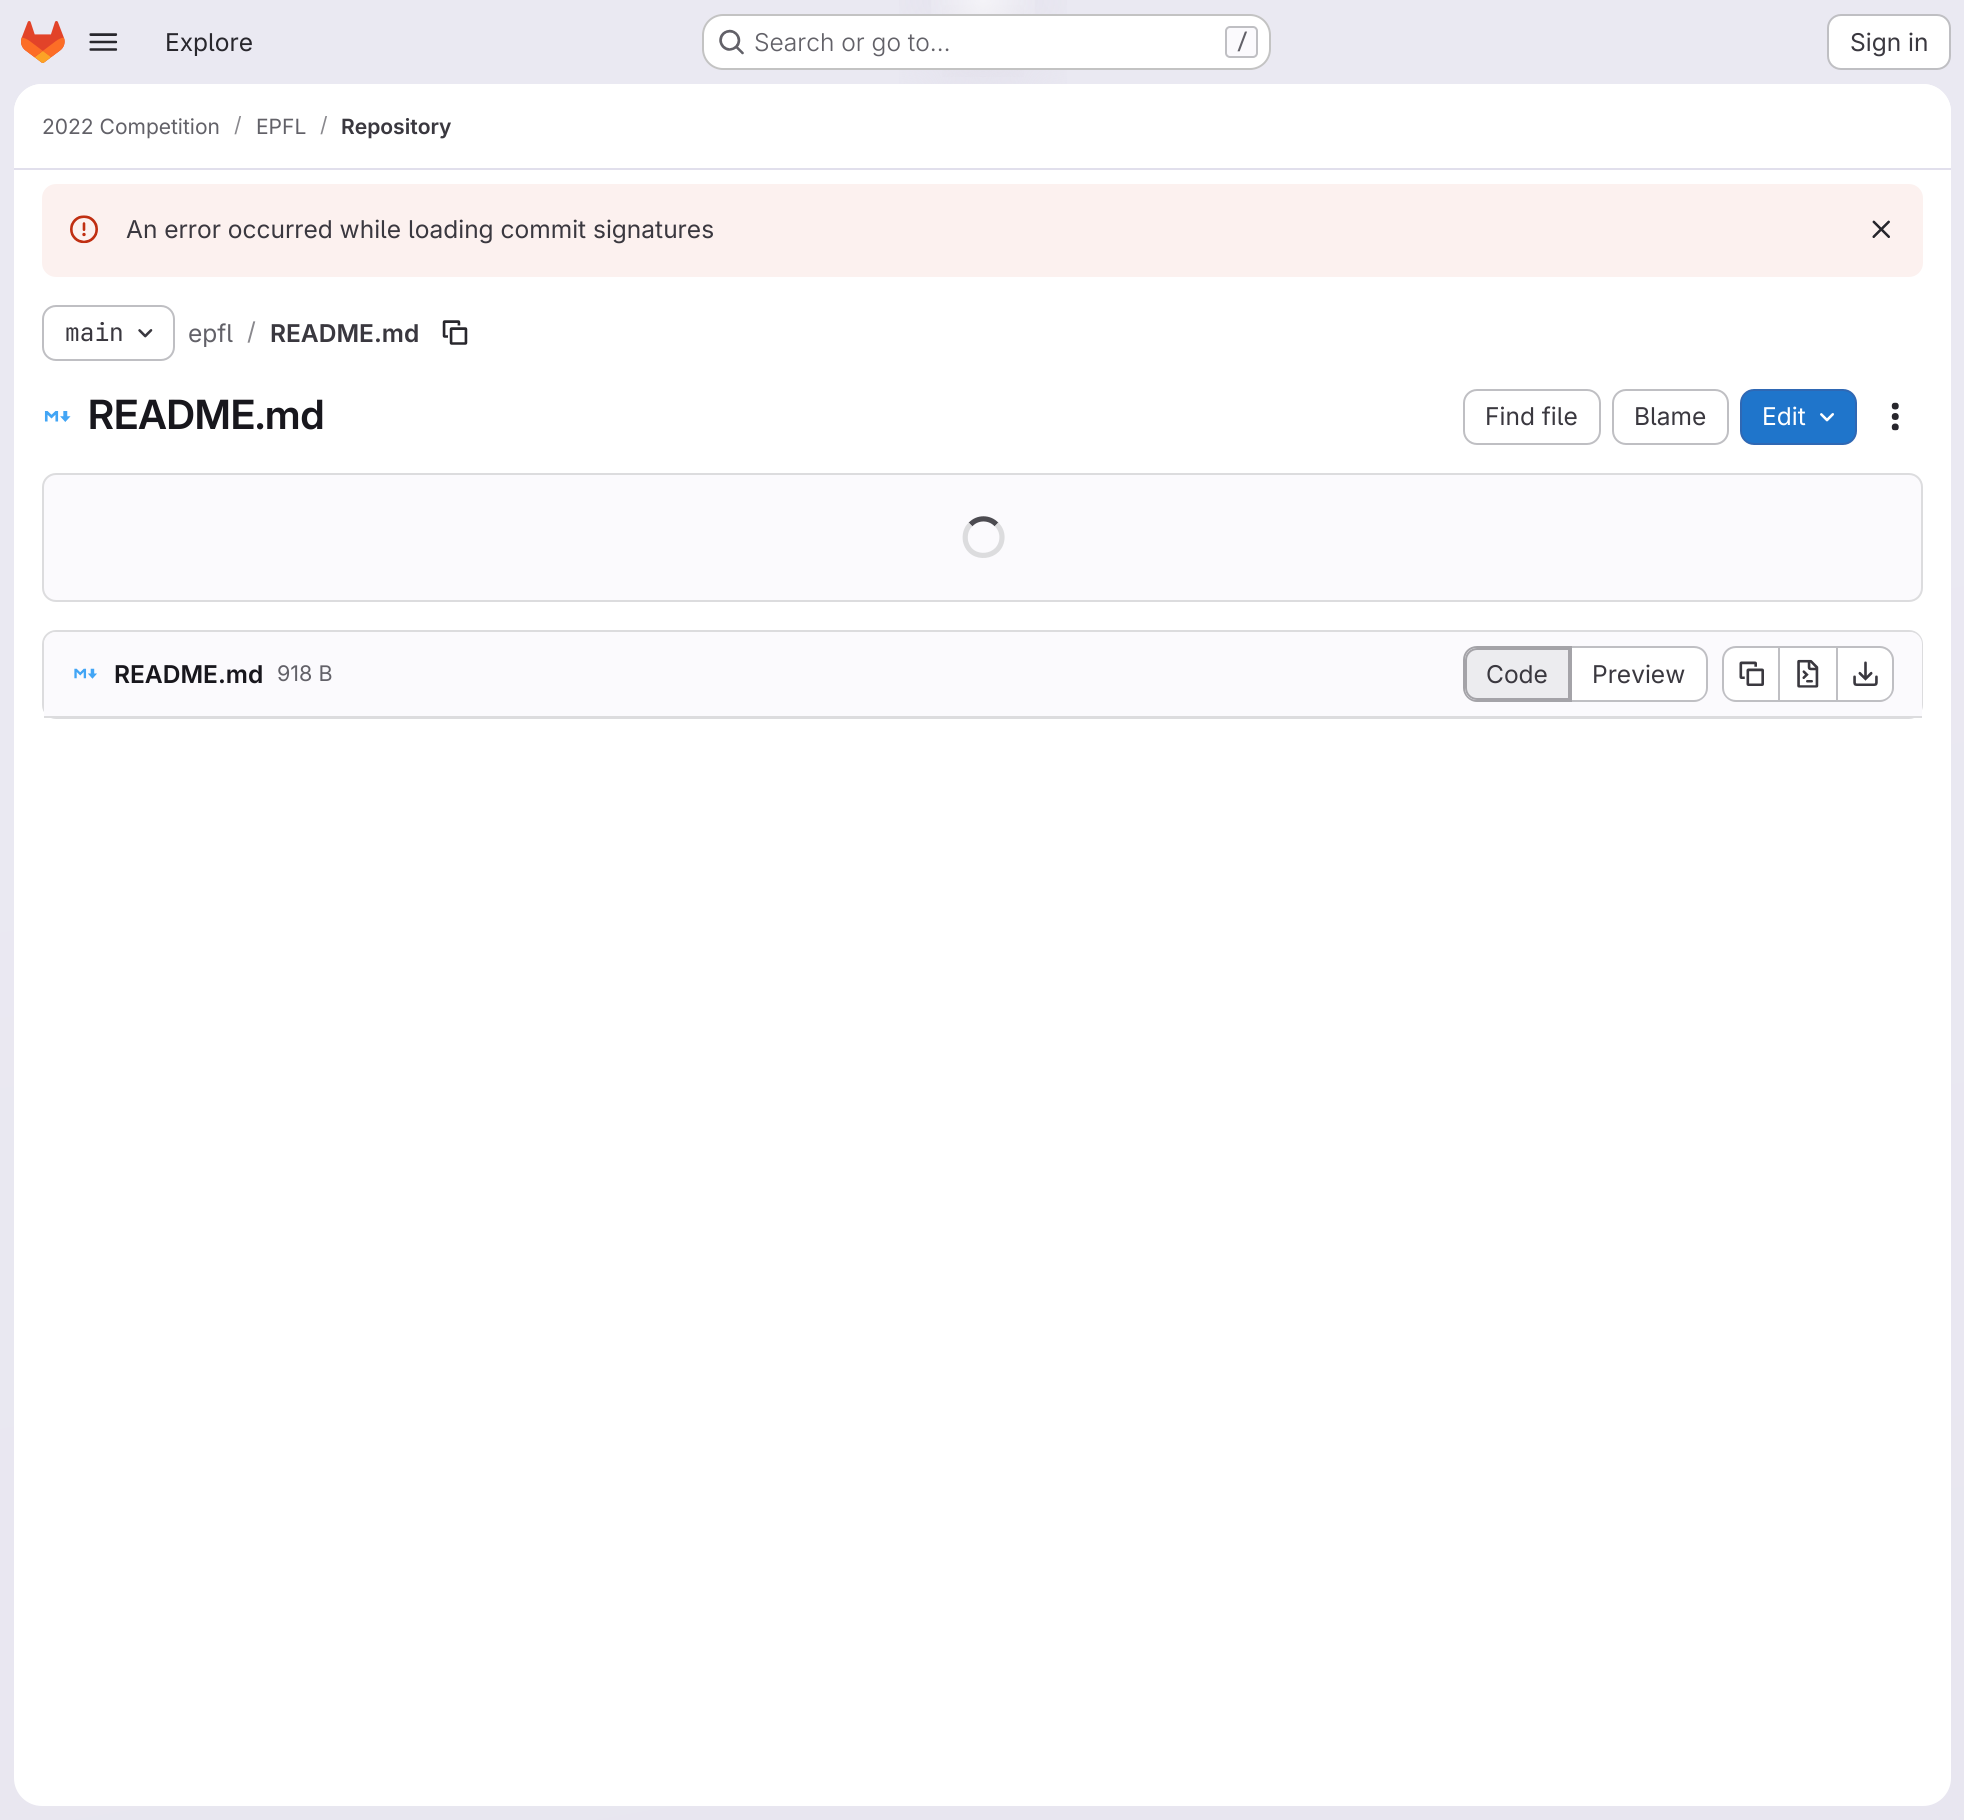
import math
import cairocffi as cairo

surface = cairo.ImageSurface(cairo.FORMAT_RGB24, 1964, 1820)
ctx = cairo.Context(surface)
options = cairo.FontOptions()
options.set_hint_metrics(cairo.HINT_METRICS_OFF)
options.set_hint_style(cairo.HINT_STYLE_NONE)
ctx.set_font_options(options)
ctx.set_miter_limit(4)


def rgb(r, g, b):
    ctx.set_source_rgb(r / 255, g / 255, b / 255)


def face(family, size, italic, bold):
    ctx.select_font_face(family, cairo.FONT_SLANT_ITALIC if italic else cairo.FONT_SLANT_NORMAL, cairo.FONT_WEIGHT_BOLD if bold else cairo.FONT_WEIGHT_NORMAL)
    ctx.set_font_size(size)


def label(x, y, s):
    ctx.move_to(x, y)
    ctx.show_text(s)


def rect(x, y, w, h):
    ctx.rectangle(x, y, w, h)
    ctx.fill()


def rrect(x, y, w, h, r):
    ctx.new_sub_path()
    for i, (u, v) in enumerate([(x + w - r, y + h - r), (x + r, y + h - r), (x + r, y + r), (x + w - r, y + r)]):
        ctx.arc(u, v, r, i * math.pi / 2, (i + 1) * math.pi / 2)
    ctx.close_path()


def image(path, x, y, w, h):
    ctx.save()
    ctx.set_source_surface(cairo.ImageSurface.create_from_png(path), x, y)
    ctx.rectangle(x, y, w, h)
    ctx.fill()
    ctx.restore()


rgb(255, 255, 255)
ctx.paint()
gradient = cairo.LinearGradient(1168, 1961, 797, -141)
gradient.add_color_stop_rgba(0, 0.91, 0.902, 0.941, 1)
gradient.add_color_stop_rgba(0.7, 0.918, 0.914, 0.949, 1)
ctx.set_source(gradient)
rect(0, 0, 1964, 1820)
gradient = cairo.RadialGradient(0, 0, 0, 0, 0, 1)
gradient.set_matrix(cairo.Matrix(1 / 983, 0, 0, 1 / 1820, -1 * 983 / 983, -1 * 0 / 1820))
gradient.add_color_stop_rgba(0, 0.894, 0.886, 0.929, 1)
gradient.add_color_stop_rgba(0.12, 0.894, 0.886, 0.929, 0)
ctx.set_source(gradient)
rect(899, 0, 168, 84)
gradient = cairo.RadialGradient(0, 0, 0, 0, 0, 1)
gradient.set_matrix(cairo.Matrix(1 / 983, 0, 0, 1 / 1820, -1 * 983 / 983, -1 * 0 / 1820))
gradient.add_color_stop_rgba(0, 0.894, 0.886, 0.925, 1)
gradient.add_color_stop_rgba(0.09, 0.894, 0.886, 0.925, 0)
ctx.set_source(gradient)
rect(942, 5, 82, 72)
gradient = cairo.RadialGradient(983, 0, 0, 983, 0, 2068)
gradient.add_color_stop_rgba(0, 1, 1, 1, 0.6)
gradient.add_color_stop_rgba(0.03, 1, 1, 1, 0)
ctx.set_source(gradient)
rect(931, 0, 104, 14)
image('image0.png', 21, 21, 44, 42)
image('image1.png', 89, 33, 29, 18)
face('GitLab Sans', 24.5, 0, 0)
rgb(40, 39, 45)
label(165, 51, 'Explore')
rgb(255, 255, 255)
rrect(702, 14, 569, 56, 21)
ctx.fill()
rrect(703, 15, 567, 54, 20)
ctx.set_source_rgba(0.02, 0.02, 0.024, 0.24)
ctx.stroke()
image('image2.png', 719, 29, 25, 26)
face('GitLab Sans Light', 24.5, 0, 0)
rgb(98, 97, 104)
label(754, 51, 'Search or go to…')
rgb(251, 250, 253)
rrect(1226, 27, 31, 30, 4)
ctx.fill_preserve()
rgb(191, 191, 195)
ctx.stroke()
face('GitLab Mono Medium', 21, 0, 0)
rgb(98, 97, 104)
label(1236, 49, '/')
rgb(255, 255, 255)
rrect(1828, 15, 122, 54, 13)
ctx.fill_preserve()
rgb(191, 191, 195)
ctx.stroke()
face('GitLab Sans', 24.5, 0, 0)
rgb(58, 56, 63)
label(1850, 51, 'Sign in')
rgb(255, 255, 255)
rrect(14, 84, 1937, 1722, 28)
ctx.fill()
ctx.new_path()
ctx.move_to(42, 84)
ctx.line_to(1923, 84)
ctx.curve_to(1938.5, 84, 1951, 96.5, 1951, 112)
ctx.line_to(1951, 170)
ctx.line_to(14, 170)
ctx.line_to(14, 112)
ctx.curve_to(14, 96.5, 26.5, 84, 42, 84)
ctx.close_path()
ctx.fill()
rgb(225, 223, 236)
rect(14, 168, 1937, 2)
face('GitLab Sans', 21, 0, 0)
rgb(98, 97, 104)
label(42, 134, '2022 Competition')
rgb(137, 136, 141)
label(234, 132, '/')
rgb(98, 97, 104)
label(256, 134, 'EPFL')
rgb(137, 136, 141)
label(320, 132, '/')
face('GitLab Sans SemiBold', 21, 0, 0)
rgb(58, 56, 63)
label(341, 134, 'Repository')
rgb(252, 241, 239)
rrect(42, 184, 1881, 93, 14)
ctx.fill()
image('image3.png', 70, 215, 28, 29)
face('GitLab Sans', 24.5, 0, 0)
rgb(58, 56, 63)
label(126, 238, 'An error occurred while loading commit signatures')
image('image4.png', 1872, 220, 18, 18)
rrect(43, 306, 131, 54, 13)
rgb(191, 191, 195)
ctx.stroke()
face('GitLab Mono', 24.5, 0, 0)
rgb(58, 56, 63)
label(65, 341, 'main')
image('image5.png', 138, 329, 15, 9)
face('GitLab Sans', 24.5, 0, 0)
rgb(98, 97, 104)
label(188, 342, 'epfl')
rgb(137, 136, 141)
label(247, 340, '/')
face('GitLab Sans SemiBold', 24.5, 0, 0)
rgb(58, 56, 63)
label(270, 342, 'README.md')
image('image6.png', 442, 320, 26, 25)
image('image7.png', 44, 411, 27, 11)
face('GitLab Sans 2 SemiBold', 40.25, 0, 0)
rgb(24, 23, 29)
label(88, 429, 'README.md')
rrect(1464, 390, 136, 54, 13)
rgb(191, 191, 195)
ctx.stroke()
face('GitLab Sans', 24.5, 0, 0)
rgb(58, 56, 63)
label(1485, 425, 'Find file')
rrect(1613, 390, 115, 54, 13)
rgb(191, 191, 195)
ctx.stroke()
rgb(58, 56, 63)
label(1634, 425, 'Blame')
rgb(31, 117, 203)
rrect(1741, 390, 115, 54, 13)
ctx.fill_preserve()
rgb(47, 104, 180)
ctx.stroke()
rgb(255, 255, 255)
label(1762, 425, 'Edit')
image('image8.png', 1820, 413, 14, 9)
image('image9.png', 1891, 402, 8, 29)
rgb(251, 250, 253)
rrect(43, 474, 1879, 127, 13)
ctx.fill_preserve()
rgb(220, 220, 222)
ctx.stroke()
ctx.new_path()
ctx.move_to(970.5, 524.5)
ctx.curve_to(977.5, 517, 989.5, 517, 996.5, 524.5)
rgb(76, 75, 81)
ctx.set_line_width(5.2)
ctx.stroke()
ctx.new_path()
ctx.move_to(996.5, 524.5)
ctx.curve_to(1000, 527.5, 1002, 532.5, 1002, 537)
ctx.curve_to(1002, 559, 970, 562.5, 965.5, 541)
ctx.curve_to(964.5, 535, 966, 528.5, 970.5, 524.5)
rgb(220, 220, 222)
ctx.stroke()
rrect(43, 631, 1879, 87, 13)
ctx.set_line_width(2)
ctx.stroke()
rgb(251, 250, 253)
ctx.new_path()
ctx.move_to(56, 632)
ctx.line_to(1910, 632)
ctx.curve_to(1916.5, 632, 1922, 637.5, 1922, 644)
ctx.line_to(1922, 718)
ctx.line_to(44, 718)
ctx.line_to(44, 644)
ctx.curve_to(44, 637.5, 49.5, 632, 56, 632)
ctx.close_path()
ctx.fill()
rgb(220, 220, 222)
rect(44, 716, 1878, 2)
image('image10.png', 74, 668, 23, 11)
face('GitLab Sans SemiBold', 24.5, 0, 0)
rgb(24, 23, 29)
label(114, 683, 'README.md')
face('GitLab Sans', 21.5, 0, 0)
rgb(98, 97, 104)
label(277, 681, '918 B')
rgb(236, 236, 239)
ctx.new_path()
ctx.move_to(1477, 649)
ctx.line_to(1569, 649)
ctx.line_to(1569, 699)
ctx.line_to(1477, 699)
ctx.curve_to(1471, 699, 1466, 694, 1466, 688)
ctx.line_to(1466, 660)
ctx.curve_to(1466, 654, 1471, 649, 1477, 649)
ctx.close_path()
ctx.fill_preserve()
rgb(164, 163, 168)
ctx.stroke()
ctx.set_fill_rule(cairo.FILL_RULE_EVEN_ODD)
ctx.new_path()
ctx.move_to(1477, 646)
ctx.line_to(1570, 646)
ctx.line_to(1570, 702)
ctx.line_to(1477, 702)
ctx.curve_to(1469, 702, 1463, 695, 1463, 688)
ctx.line_to(1463, 660)
ctx.curve_to(1463, 652, 1469, 646, 1477, 646)
ctx.close_path()
ctx.move_to(1477, 648)
ctx.line_to(1570, 648)
ctx.line_to(1570, 700)
ctx.line_to(1477, 700)
ctx.curve_to(1470, 700, 1465, 695, 1465, 688)
ctx.line_to(1465, 660)
ctx.curve_to(1465, 653, 1470, 648, 1477, 648)
ctx.close_path()
ctx.fill()
face('GitLab Sans', 24.5, 0, 0)
rgb(58, 56, 63)
label(1486, 683, 'Code')
rgb(255, 255, 255)
ctx.new_path()
ctx.move_to(1572, 648)
ctx.line_to(1694, 648)
ctx.curve_to(1700.5, 648, 1706, 653.5, 1706, 660)
ctx.line_to(1706, 688)
ctx.curve_to(1706, 694.5, 1700.5, 700, 1694, 700)
ctx.line_to(1572, 700)
ctx.close_path()
ctx.fill()
rgb(191, 191, 195)
ctx.new_path()
ctx.move_to(1572, 646)
ctx.line_to(1694, 646)
ctx.curve_to(1702, 646, 1708, 652, 1708, 660)
ctx.line_to(1708, 688)
ctx.curve_to(1708, 695, 1702, 702, 1694, 702)
ctx.line_to(1572, 702)
ctx.close_path()
ctx.move_to(1572, 648)
ctx.line_to(1694, 648)
ctx.curve_to(1701, 648, 1706, 653, 1706, 660)
ctx.line_to(1706, 688)
ctx.curve_to(1706, 695, 1701, 700, 1694, 700)
ctx.line_to(1572, 700)
ctx.close_path()
ctx.fill()
rgb(164, 163, 168)
rect(1570, 646, 2, 56)
rgb(58, 56, 63)
label(1592, 683, 'Preview')
rgb(255, 255, 255)
ctx.new_path()
ctx.move_to(1736, 648)
ctx.line_to(1778, 648)
ctx.line_to(1778, 700)
ctx.line_to(1736, 700)
ctx.curve_to(1729.5, 700, 1724, 694.5, 1724, 688)
ctx.line_to(1724, 660)
ctx.curve_to(1724, 653.5, 1729.5, 648, 1736, 648)
ctx.close_path()
ctx.fill()
rgb(191, 191, 195)
ctx.new_path()
ctx.move_to(1736, 646)
ctx.line_to(1778, 646)
ctx.line_to(1778, 702)
ctx.line_to(1736, 702)
ctx.curve_to(1728, 702, 1722, 695, 1722, 688)
ctx.line_to(1722, 660)
ctx.curve_to(1722, 652, 1728, 646, 1736, 646)
ctx.close_path()
ctx.move_to(1736, 648)
ctx.line_to(1778, 648)
ctx.line_to(1778, 700)
ctx.line_to(1736, 700)
ctx.curve_to(1729, 700, 1724, 695, 1724, 688)
ctx.line_to(1724, 660)
ctx.curve_to(1724, 653, 1729, 648, 1736, 648)
ctx.close_path()
ctx.fill()
image('image11.png', 1739, 661, 25, 25)
rgb(255, 255, 255)
rect(1780, 648, 56, 52)
rgb(191, 191, 195)
rect(1780, 646, 56, 2)
rect(1780, 700, 56, 2)
rect(1778, 646, 2, 56)
image('image12.png', 1797, 659, 22, 29)
rgb(255, 255, 255)
ctx.new_path()
ctx.move_to(1838, 648)
ctx.line_to(1880, 648)
ctx.curve_to(1886.5, 648, 1892, 653.5, 1892, 660)
ctx.line_to(1892, 688)
ctx.curve_to(1892, 694.5, 1886.5, 700, 1880, 700)
ctx.line_to(1838, 700)
ctx.close_path()
ctx.fill()
rgb(191, 191, 195)
ctx.new_path()
ctx.move_to(1838, 646)
ctx.line_to(1880, 646)
ctx.curve_to(1887, 646, 1894, 652, 1894, 660)
ctx.line_to(1894, 688)
ctx.curve_to(1894, 695, 1887, 702, 1880, 702)
ctx.line_to(1838, 702)
ctx.close_path()
ctx.move_to(1838, 648)
ctx.line_to(1880, 648)
ctx.curve_to(1886, 648, 1892, 653, 1892, 660)
ctx.line_to(1892, 688)
ctx.curve_to(1892, 695, 1886, 700, 1880, 700)
ctx.line_to(1838, 700)
ctx.close_path()
ctx.fill()
rect(1836, 646, 2, 56)
image('image13.png', 1853, 661, 25, 25)
surface.write_to_png('render.png')
